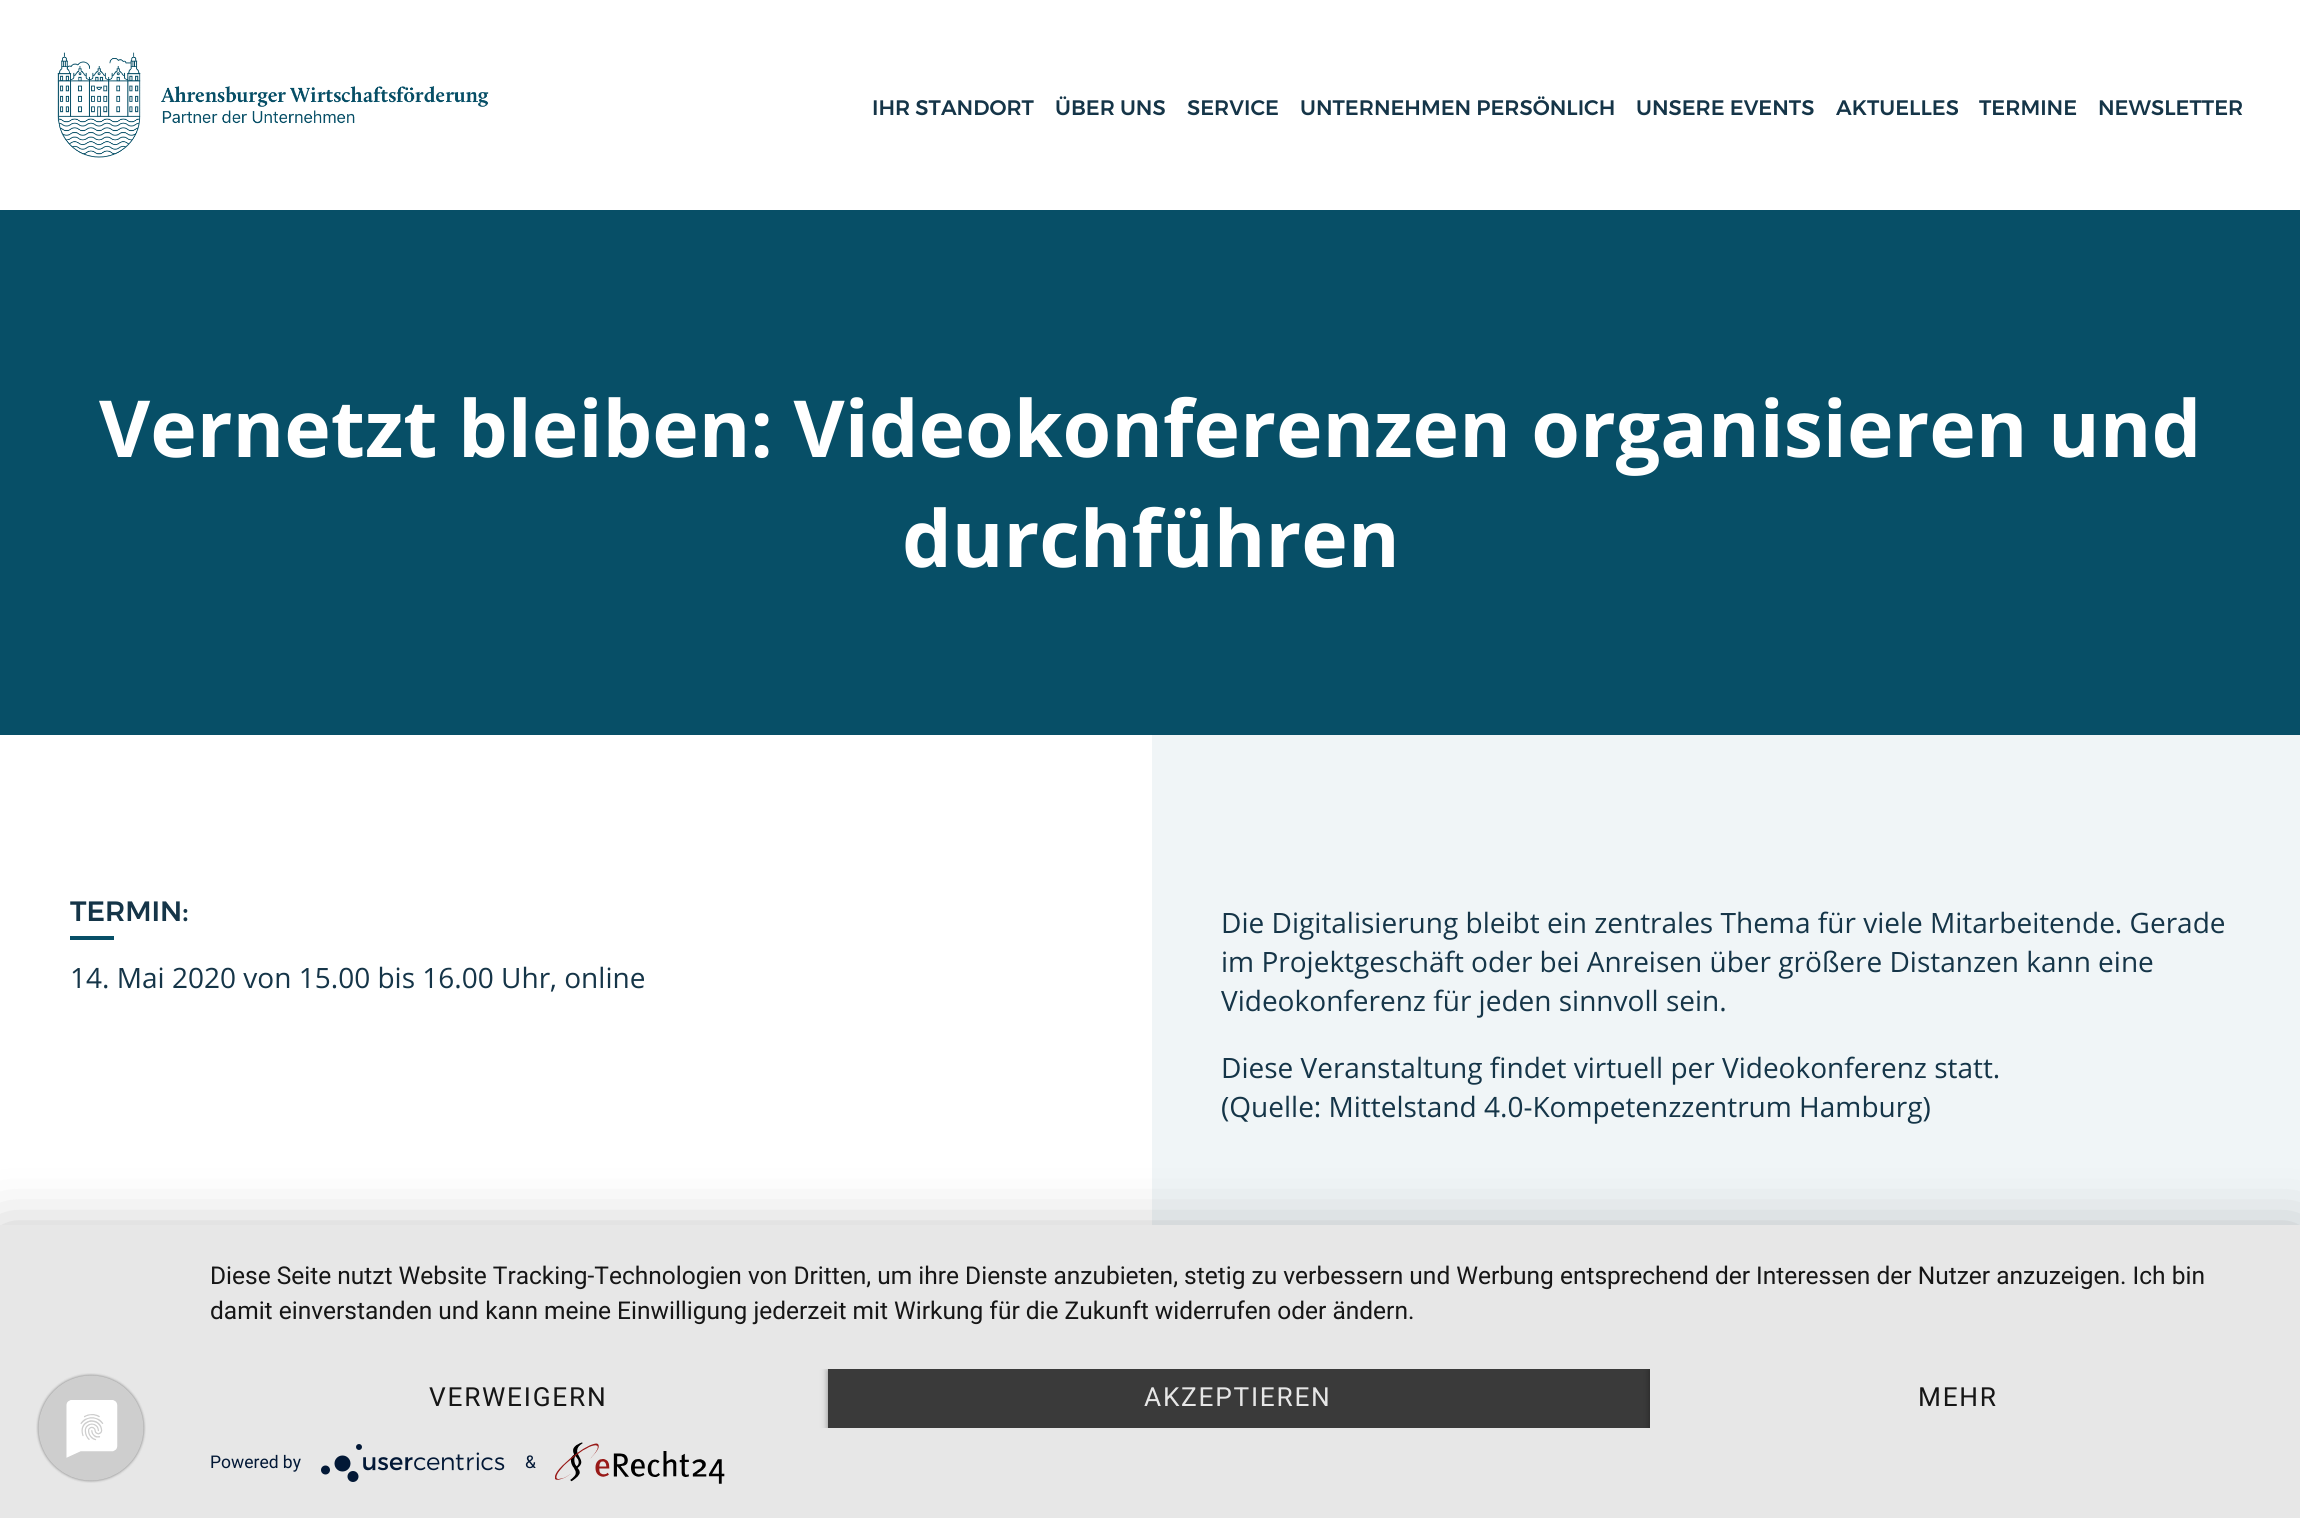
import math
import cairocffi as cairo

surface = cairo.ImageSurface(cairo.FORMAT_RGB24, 2300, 1518)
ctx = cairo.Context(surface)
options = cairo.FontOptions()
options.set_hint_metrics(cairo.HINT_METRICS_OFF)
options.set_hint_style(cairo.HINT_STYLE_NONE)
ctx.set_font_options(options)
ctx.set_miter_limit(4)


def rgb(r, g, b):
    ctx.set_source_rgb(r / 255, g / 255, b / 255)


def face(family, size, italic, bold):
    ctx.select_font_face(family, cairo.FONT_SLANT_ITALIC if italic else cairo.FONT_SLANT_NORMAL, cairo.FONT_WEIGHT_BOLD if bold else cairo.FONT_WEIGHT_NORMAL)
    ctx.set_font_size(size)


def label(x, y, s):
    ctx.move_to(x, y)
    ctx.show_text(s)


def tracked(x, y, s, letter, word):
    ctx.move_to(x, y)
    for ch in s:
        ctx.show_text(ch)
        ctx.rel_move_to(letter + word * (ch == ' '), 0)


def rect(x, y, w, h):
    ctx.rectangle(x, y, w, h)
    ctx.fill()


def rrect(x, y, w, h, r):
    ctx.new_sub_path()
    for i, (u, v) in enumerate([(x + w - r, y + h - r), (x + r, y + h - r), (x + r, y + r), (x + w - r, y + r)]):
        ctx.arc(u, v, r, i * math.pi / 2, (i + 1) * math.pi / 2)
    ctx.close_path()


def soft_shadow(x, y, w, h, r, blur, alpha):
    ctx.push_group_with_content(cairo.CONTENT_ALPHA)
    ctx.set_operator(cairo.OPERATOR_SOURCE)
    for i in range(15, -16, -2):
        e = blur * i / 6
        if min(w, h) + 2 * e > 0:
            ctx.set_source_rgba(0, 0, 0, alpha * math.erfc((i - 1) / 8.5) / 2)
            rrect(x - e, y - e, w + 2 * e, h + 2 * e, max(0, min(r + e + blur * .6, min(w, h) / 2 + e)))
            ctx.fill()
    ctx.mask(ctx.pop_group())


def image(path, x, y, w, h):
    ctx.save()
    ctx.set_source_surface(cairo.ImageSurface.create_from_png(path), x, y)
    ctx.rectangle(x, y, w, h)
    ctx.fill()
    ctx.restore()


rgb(255, 255, 255)
ctx.paint()
image('image0.png', 57, 52, 432, 106)
face('Montserrat Medium', 21, 0, 0)
rgb(21, 53, 72)
label(872, 115, 'IHR STANDORT')
label(1055, 115, 'ÜBER UNS')
label(1187, 115, 'SERVICE')
label(1300, 115, 'UNTERNEHMEN PERSÖNLICH')
label(1636, 115, 'UNSERE EVENTS')
label(1836, 115, 'AKTUELLES')
label(1979, 115, 'TERMINE')
label(2098, 115, 'NEWSLETTER')
rgb(7, 79, 103)
rect(0, 210, 2300, 525)
face('Open Sans', 78.75, 0, 1)
rgb(255, 255, 255)
label(99, 457, 'Vernetzt bleiben: Videokonferenzen organisieren und')
label(902, 567, 'durchführen')
face('Montserrat Medium', 28, 0, 0)
rgb(21, 53, 72)
label(70, 921, 'TERMIN:')
rgb(7, 79, 103)
rect(70, 936, 44, 4)
face('Open Sans', 28, 0, 0)
rgb(21, 53, 72)
label(70, 988, '14. Mai 2020 von 15.00 bis 16.00 Uhr, online')
rgb(240, 245, 247)
rect(1152, 735, 1148, 490)
rgb(21, 53, 72)
label(1221, 933, 'Die Digitalisierung bleibt ein zentrales Thema für viele Mitarbeitende. Gerade')
label(1221, 972, 'im Projektgeschäft oder bei Anreisen über größere Distanzen kann eine')
label(1221, 1011, 'Videokonferenz für jeden sinnvoll sein.')
label(1221, 1078, 'Diese Veranstaltung findet virtuell per Videokonferenz statt.')
label(1221, 1117, '(Quelle: Mittelstand 4.0-Kompetenzzentrum Hamburg)')
rgb(0, 0, 0)
soft_shadow(0, 1236, 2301, 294, 0, 31.5, 0.3)
rgb(231, 231, 231)
rect(0, 1225, 2300, 293)
image('image1.png', 36, 1373, 110, 110)
face('Roboto', 24.5, 0, 0)
rgb(22, 22, 22)
label(210, 1284, 'Diese Seite nutzt Website Tracking-Technologien von Dritten, um ihre Dienste anzubieten, stetig zu verbessern und Werbung entsprechend der Interessen der Nutzer anzuzeigen. Ich bin')
label(210, 1319, 'damit einverstanden und kann meine Einwilligung jederzeit mit Wirkung für die Zukunft widerrufen oder ändern.')
face('Roboto', 26.25, 0, 0)
tracked(429, 1406, 'VERWEIGERN', 1.75, 0)
ctx.save()
ctx.rectangle(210, 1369, 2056, 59)
ctx.clip()
rgb(0, 0, 0)
soft_shadow(828, 1370, 822, 60, 0, 3.5, 0.4)
ctx.restore()
rgb(58, 58, 58)
rect(828, 1369, 822, 59)
rgb(230, 230, 230)
tracked(1144, 1406, 'AKZEPTIEREN', 1.75, 0)
ctx.save()
ctx.rectangle(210, 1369, 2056, 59)
ctx.clip()
rgb(0, 0, 0)
soft_shadow(1650, 1370, 616, 60, 0, 3.5, 0.4)
ctx.restore()
rgb(231, 231, 231)
rect(1650, 1369, 616, 59)
rgb(22, 22, 22)
tracked(1918, 1406, 'MEHR', 1.75, 0)
face('Roboto', 17.5, 0, 0)
rgb(2, 24, 54)
label(210, 1468, 'Powered by')
image('image2.png', 321, 1444, 184, 38)
label(525, 1468, '&')
image('image3.png', 555, 1442, 170, 42)
surface.write_to_png('render.png')
